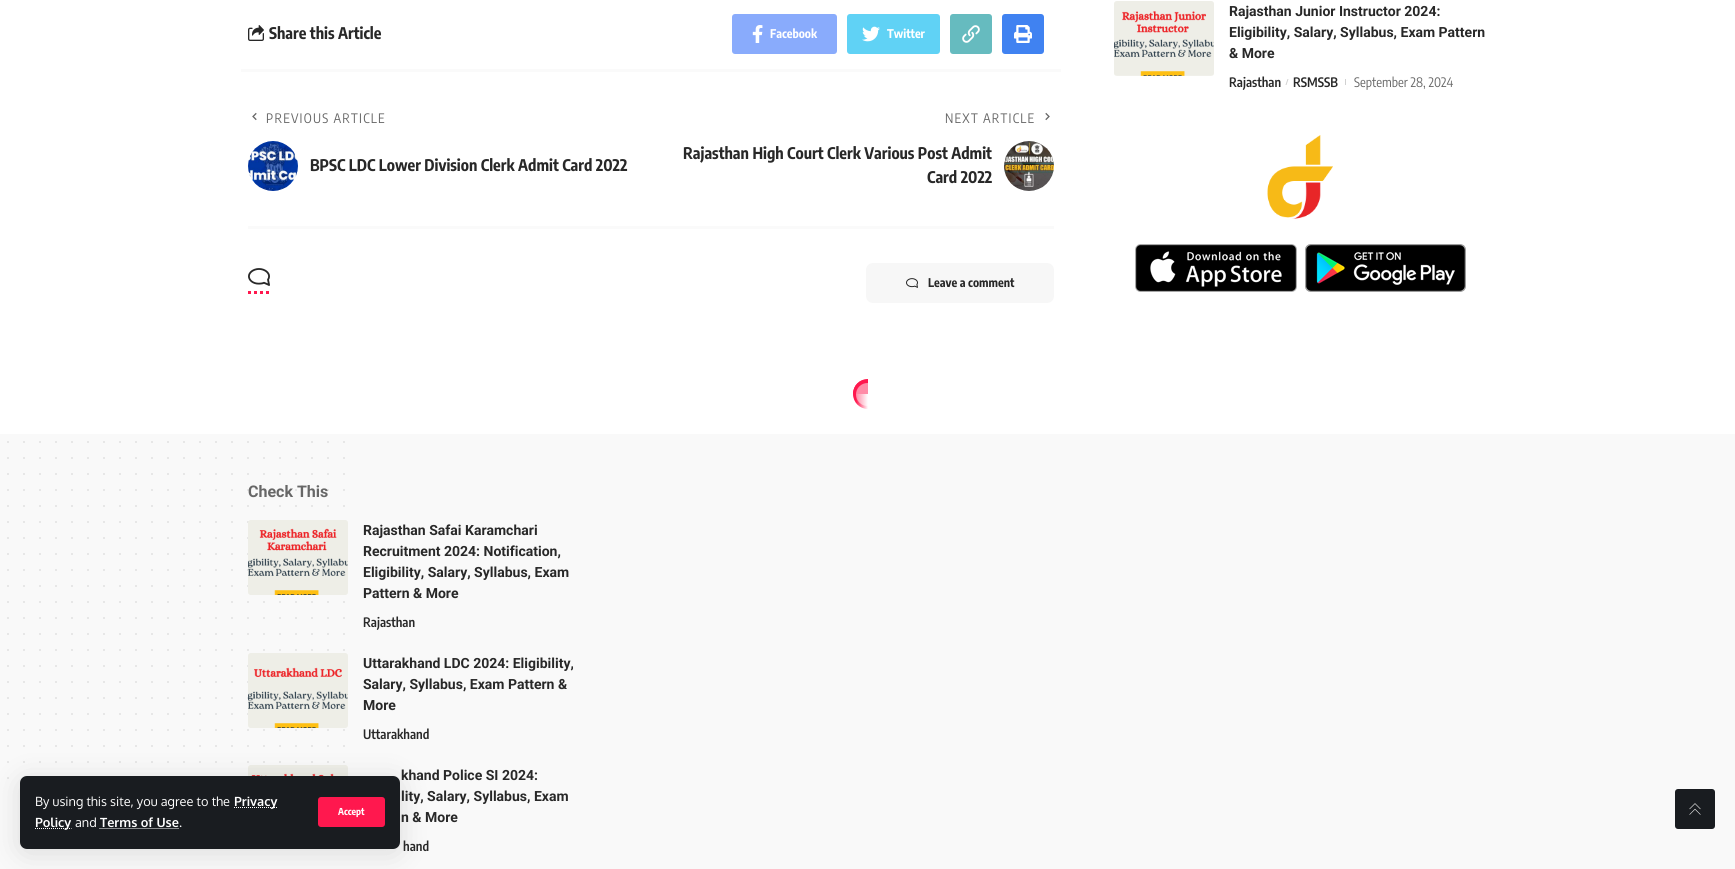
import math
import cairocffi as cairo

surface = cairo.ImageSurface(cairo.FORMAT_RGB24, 1735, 869)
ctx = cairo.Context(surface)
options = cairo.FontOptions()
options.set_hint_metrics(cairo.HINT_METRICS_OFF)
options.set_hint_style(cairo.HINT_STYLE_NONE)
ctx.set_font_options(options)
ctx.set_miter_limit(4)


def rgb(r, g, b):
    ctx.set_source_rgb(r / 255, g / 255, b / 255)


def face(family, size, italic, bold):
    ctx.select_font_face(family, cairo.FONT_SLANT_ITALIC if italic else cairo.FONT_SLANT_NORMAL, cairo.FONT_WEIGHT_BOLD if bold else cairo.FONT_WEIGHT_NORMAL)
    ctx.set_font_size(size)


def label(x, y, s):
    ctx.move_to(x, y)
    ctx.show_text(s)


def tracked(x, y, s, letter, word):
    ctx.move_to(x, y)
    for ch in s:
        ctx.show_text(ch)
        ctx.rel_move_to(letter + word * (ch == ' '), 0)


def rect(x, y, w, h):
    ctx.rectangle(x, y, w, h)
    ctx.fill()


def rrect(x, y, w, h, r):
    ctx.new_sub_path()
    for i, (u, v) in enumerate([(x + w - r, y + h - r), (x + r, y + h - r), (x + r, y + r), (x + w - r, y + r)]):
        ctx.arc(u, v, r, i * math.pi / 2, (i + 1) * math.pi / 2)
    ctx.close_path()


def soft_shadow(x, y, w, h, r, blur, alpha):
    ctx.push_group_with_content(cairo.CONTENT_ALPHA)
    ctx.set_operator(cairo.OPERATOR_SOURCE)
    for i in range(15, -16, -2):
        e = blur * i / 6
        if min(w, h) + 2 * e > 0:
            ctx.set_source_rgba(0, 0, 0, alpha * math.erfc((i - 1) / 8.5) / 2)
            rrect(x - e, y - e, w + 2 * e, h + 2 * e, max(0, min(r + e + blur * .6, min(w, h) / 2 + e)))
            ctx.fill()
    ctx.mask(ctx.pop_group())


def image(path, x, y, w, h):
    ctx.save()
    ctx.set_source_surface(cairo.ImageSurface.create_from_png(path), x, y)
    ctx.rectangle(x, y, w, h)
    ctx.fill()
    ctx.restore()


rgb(255, 255, 255)
ctx.paint()
image('image0.png', 248, 25, 16, 16)
face('Encode Sans Condensed', 16, 0, 1)
rgb(40, 40, 40)
label(269, 39, 'Share this Article')
rgb(137, 171, 252)
rrect(732, 14, 105, 40, 3)
ctx.fill()
image('image1.png', 752, 25, 11, 18)
face('Encode Sans Condensed', 12, 0, 1)
rgb(255, 255, 255)
label(770, 38, 'Facebook')
rgb(96, 210, 245)
rrect(847, 14, 93, 40, 3)
ctx.fill()
image('image2.png', 862, 26, 18, 16)
rgb(255, 255, 255)
label(887, 38, 'Twitter')
rgb(102, 187, 191)
rrect(950, 14, 42, 40, 3)
ctx.fill()
image('image3.png', 962, 25, 18, 18)
rgb(64, 130, 241)
rrect(1002, 14, 42, 40, 3)
ctx.fill()
image('image4.png', 1014, 25, 18, 18)
rgb(250, 250, 250)
rect(241, 69, 820, 3)
image('image5.png', 252, 112, 5, 9)
face('Encode Sans Condensed', 13, 0, 0)
rgb(103, 103, 103)
tracked(266, 123, 'PREVIOUS ARTICLE', 1.25, 0)
image('image6.png', 248, 141, 50, 50)
face('Encode Sans Condensed', 16, 0, 1)
rgb(40, 40, 40)
label(310, 171, 'BPSC LDC Lower Division Clerk Admit Card 2022')
face('Encode Sans Condensed', 13, 0, 0)
rgb(103, 103, 103)
tracked(945, 123, 'NEXT ARTICLE', 1.25, 0)
image('image7.png', 1045, 112, 5, 9)
face('Encode Sans Condensed', 16, 0, 1)
rgb(40, 40, 40)
label(683, 159, 'Rajasthan High Court Clerk Various Post Admit')
label(927, 183, 'Card 2022')
image('image8.png', 1004, 141, 50, 50)
rgb(250, 250, 250)
rect(248, 226, 806, 3)
ctx.new_path()
ctx.move_to(248, 292.5)
ctx.line_to(270, 292.5)
rgb(255, 24, 78)
ctx.set_line_width(3)
ctx.set_dash([3, 3])
ctx.stroke()
image('image9.png', 248, 268, 22, 18)
rgb(247, 247, 247)
rrect(866, 263, 188, 40, 7)
ctx.fill()
image('image10.png', 906, 278, 12, 10)
face('Encode Sans Condensed', 12, 0, 1)
rgb(40, 40, 40)
label(928, 287, 'Leave a comment')
image('image11.png', 1114, 1, 100, 75)
face('Roboto', 14, 0, 1)
label(1229, 16, 'Rajasthan Junior Instructor 2024:')
label(1229, 37, 'Eligibility, Salary, Syllabus, Exam Pattern')
label(1229, 58, '& More')
face('Encode Sans Condensed SemiBold', 13, 0, 0)
label(1229, 87, 'Rajasthan')
rgb(209, 209, 209)
ctx.new_path()
ctx.move_to(1287.5, 79)
ctx.line_to(1288.5, 79)
ctx.line_to(1286.5, 85)
ctx.line_to(1285.5, 85)
ctx.close_path()
ctx.fill()
rgb(40, 40, 40)
label(1293, 87, 'RSMSSB')
rgb(209, 209, 209)
rect(1345, 79, 1, 6)
face('Encode Sans Condensed', 13, 0, 0)
rgb(103, 103, 103)
label(1354, 87, 'September 28, 2024')
image('image12.png', 1267, 135, 66, 84)
image('image13.png', 1135, 244, 162, 48)
image('image14.png', 1305, 244, 161, 48)
gradient = cairo.LinearGradient(853, 394, 883, 394)
gradient.add_color_stop_rgba(0.1, 1, 0.094, 0.306, 1)
gradient.add_color_stop_rgba(0.5, 1, 1, 1, 1)
ctx.set_source(gradient)
ctx.arc(868, 394, 15, 0, 2 * math.pi)
ctx.fill()
rgb(255, 24, 78)
ctx.new_path()
ctx.move_to(868, 379)
ctx.line_to(868, 394)
ctx.line_to(853, 394)
ctx.curve_to(853, 385.5, 859.5, 379, 868, 379)
ctx.close_path()
ctx.fill()
ctx.set_source_rgba(1, 1, 1, 0.5)
ctx.arc(867.5, 394.5, 11.5, 0, 2 * math.pi)
ctx.fill()
rgb(249, 249, 249)
rect(0, 434, 1735, 435)
ctx.new_path()
ctx.move_to(8, 746)
ctx.line_to(344.2, 746)
rgb(207, 207, 207)
ctx.set_line_width(1.5)
ctx.set_line_cap(cairo.LINE_CAP_ROUND)
ctx.set_dash([0, 16])
ctx.stroke()
ctx.new_path()
ctx.move_to(8, 762)
ctx.line_to(344.2, 762)
ctx.stroke()
ctx.new_path()
ctx.move_to(8, 778)
ctx.line_to(344.2, 778)
ctx.stroke()
image('image17.png', 248, 765, 100, 11)
rgb(0, 0, 0)
soft_shadow(20, 780, 380, 73, 7, 15, 0.12)
rgb(25, 28, 32)
rrect(20, 776, 380, 73, 7)
ctx.fill()
face('Oxygen', 12.75, 0, 0)
rgb(255, 255, 255)
label(35, 806, 'By using this site, you agree to the')
ctx.new_path()
ctx.move_to(234, 807.5)
ctx.line_to(277.5, 807.5)
ctx.set_line_width(1)
ctx.set_line_cap(cairo.LINE_CAP_BUTT)
ctx.set_dash([1, 1])
ctx.stroke()
face('Oxygen', 12.75, 0, 1)
label(234, 806, 'Privacy')
ctx.new_path()
ctx.move_to(35, 828.5)
ctx.line_to(71.5, 828.5)
ctx.stroke()
label(35, 827, 'Policy')
face('Oxygen', 12.75, 0, 0)
label(75, 827, 'and')
face('Oxygen', 12.75, 0, 1)
label(100, 827, 'Terms of Use')
ctx.new_path()
ctx.move_to(99.5, 828.5)
ctx.line_to(179, 828.5)
ctx.stroke()
face('Oxygen', 12.75, 0, 0)
label(179, 827, '.')
rgb(255, 24, 78)
rrect(318, 797, 67, 30, 3)
ctx.fill()
face('Encode Sans Condensed', 9.5, 0, 1)
rgb(255, 255, 255)
label(338, 815, 'Accept')
ctx.new_path()
ctx.move_to(8, 442)
ctx.line_to(344.2, 442)
rgb(207, 207, 207)
ctx.set_line_width(1.5)
ctx.set_line_cap(cairo.LINE_CAP_ROUND)
ctx.set_dash([0, 16])
ctx.stroke()
ctx.new_path()
ctx.move_to(8, 458)
ctx.line_to(344.2, 458)
ctx.stroke()
ctx.new_path()
ctx.move_to(8, 474)
ctx.line_to(344.2, 474)
ctx.stroke()
ctx.new_path()
ctx.move_to(8, 490)
ctx.line_to(344.2, 490)
ctx.stroke()
ctx.new_path()
ctx.move_to(8, 506)
ctx.line_to(344.2, 506)
ctx.stroke()
ctx.new_path()
ctx.move_to(8, 522)
ctx.line_to(344.2, 522)
ctx.stroke()
ctx.new_path()
ctx.move_to(8, 538)
ctx.line_to(344.2, 538)
ctx.stroke()
ctx.new_path()
ctx.move_to(8, 554)
ctx.line_to(344.2, 554)
ctx.stroke()
ctx.new_path()
ctx.move_to(8, 570)
ctx.line_to(344.2, 570)
ctx.stroke()
ctx.new_path()
ctx.move_to(8, 586)
ctx.line_to(344.2, 586)
ctx.stroke()
ctx.new_path()
ctx.move_to(8, 602)
ctx.line_to(344.2, 602)
ctx.stroke()
ctx.new_path()
ctx.move_to(8, 618)
ctx.line_to(344.2, 618)
ctx.stroke()
ctx.new_path()
ctx.move_to(8, 634)
ctx.line_to(344.2, 634)
ctx.stroke()
ctx.new_path()
ctx.move_to(8, 650)
ctx.line_to(344.2, 650)
ctx.stroke()
ctx.new_path()
ctx.move_to(8, 666)
ctx.line_to(344.2, 666)
ctx.stroke()
ctx.new_path()
ctx.move_to(8, 682)
ctx.line_to(344.2, 682)
ctx.stroke()
ctx.new_path()
ctx.move_to(8, 698)
ctx.line_to(344.2, 698)
ctx.stroke()
ctx.new_path()
ctx.move_to(8, 714)
ctx.line_to(344.2, 714)
ctx.stroke()
ctx.new_path()
ctx.move_to(8, 730)
ctx.line_to(344.2, 730)
ctx.stroke()
face('Roboto', 16, 0, 1)
rgb(103, 103, 103)
label(248, 497, 'Check This')
image('image15.png', 248, 520, 100, 75)
face('Roboto', 14, 0, 1)
rgb(40, 40, 40)
label(363, 535, 'Rajasthan Safai Karamchari')
label(363, 556, 'Recruitment 2024: Notification,')
label(363, 577, 'Eligibility, Salary, Syllabus, Exam')
label(363, 598, 'Pattern & More')
face('Encode Sans Condensed SemiBold', 13, 0, 0)
label(363, 627, 'Rajasthan')
image('image16.png', 248, 653, 100, 75)
face('Roboto', 14, 0, 1)
label(363, 668, 'Uttarakhand LDC 2024: Eligibility,')
label(363, 689, 'Salary, Syllabus, Exam Pattern &')
label(363, 710, 'More')
face('Encode Sans Condensed SemiBold', 13, 0, 0)
label(363, 739, 'Uttarakhand')
face('Roboto', 14, 0, 1)
label(401, 780, 'khand Police SI 2024:')
label(401, 801, 'lity, Salary, Syllabus, Exam')
label(401, 822, 'n & More')
face('Encode Sans Condensed SemiBold', 13, 0, 0)
label(403, 851, 'hand')
rgb(25, 28, 32)
rrect(1675, 789, 40, 40, 3)
ctx.fill()
image('image18.png', 1689, 803, 12, 12)
surface.write_to_png('render.png')
